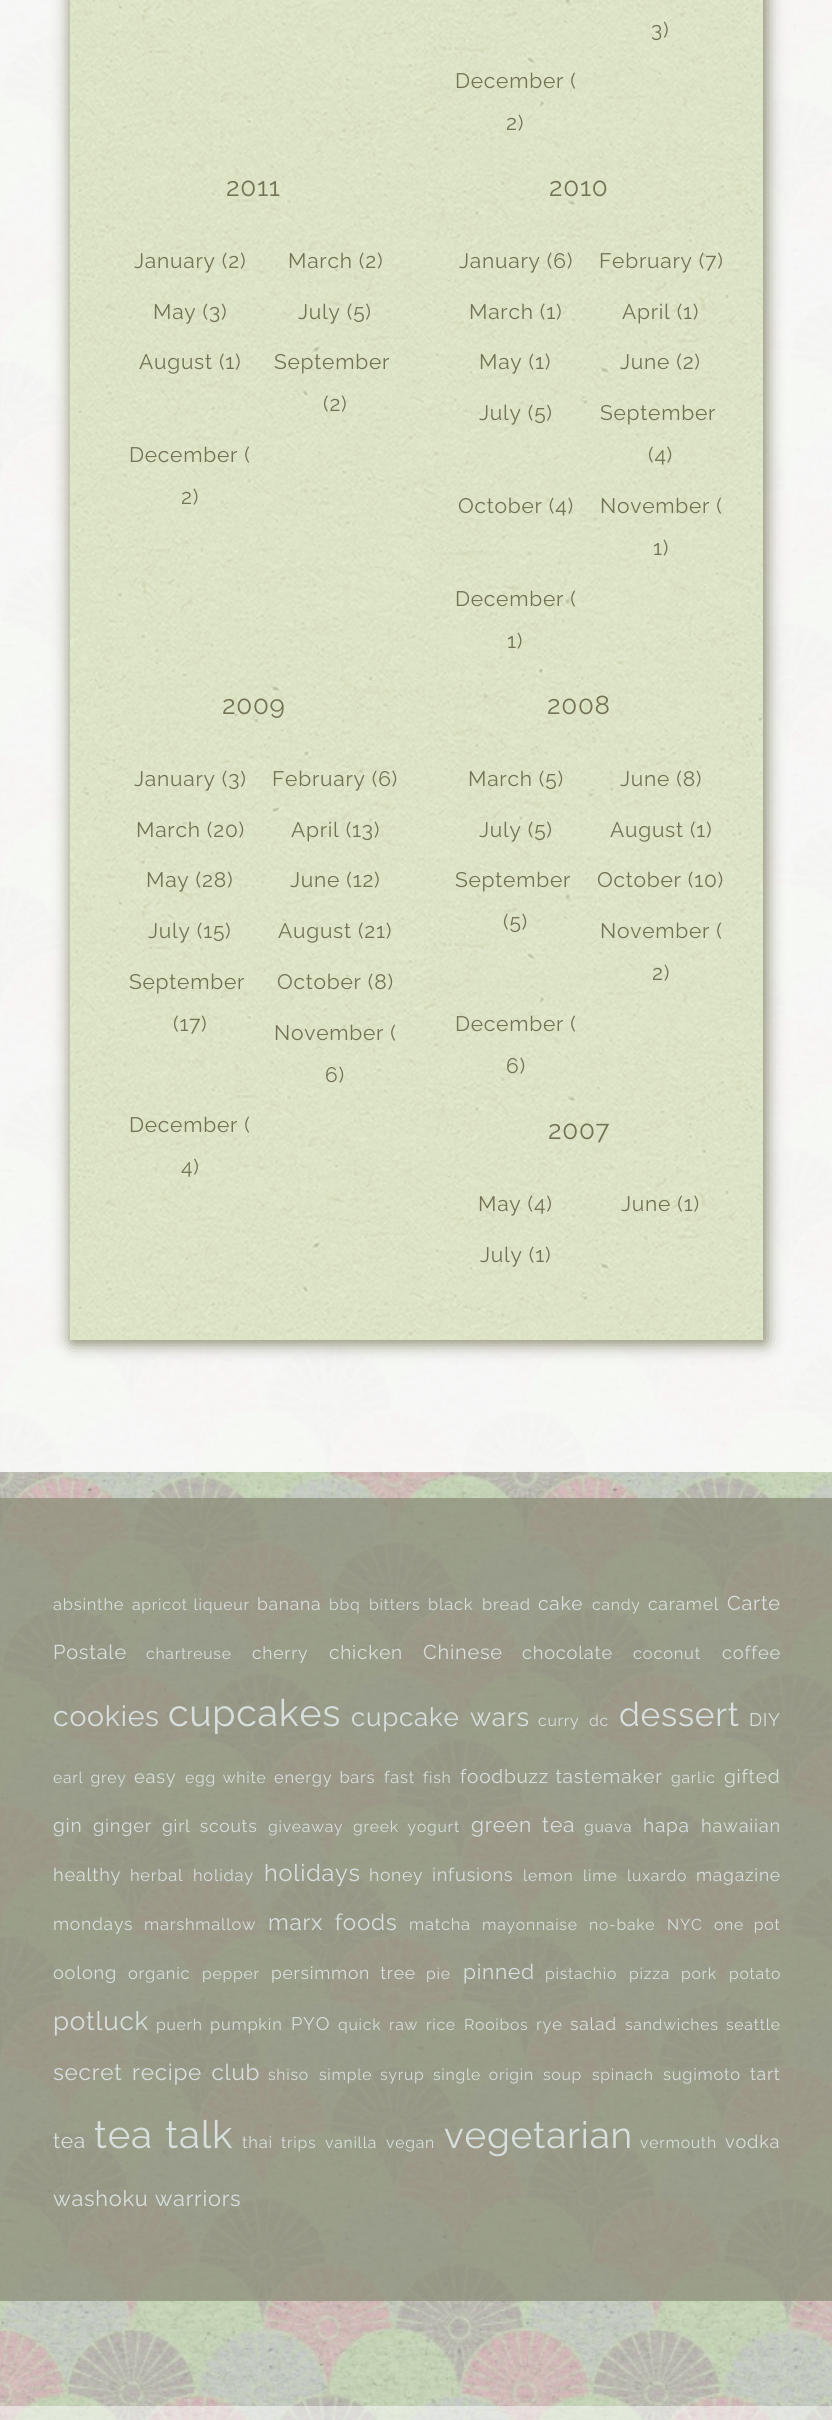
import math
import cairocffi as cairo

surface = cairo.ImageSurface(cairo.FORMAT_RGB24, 832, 2420)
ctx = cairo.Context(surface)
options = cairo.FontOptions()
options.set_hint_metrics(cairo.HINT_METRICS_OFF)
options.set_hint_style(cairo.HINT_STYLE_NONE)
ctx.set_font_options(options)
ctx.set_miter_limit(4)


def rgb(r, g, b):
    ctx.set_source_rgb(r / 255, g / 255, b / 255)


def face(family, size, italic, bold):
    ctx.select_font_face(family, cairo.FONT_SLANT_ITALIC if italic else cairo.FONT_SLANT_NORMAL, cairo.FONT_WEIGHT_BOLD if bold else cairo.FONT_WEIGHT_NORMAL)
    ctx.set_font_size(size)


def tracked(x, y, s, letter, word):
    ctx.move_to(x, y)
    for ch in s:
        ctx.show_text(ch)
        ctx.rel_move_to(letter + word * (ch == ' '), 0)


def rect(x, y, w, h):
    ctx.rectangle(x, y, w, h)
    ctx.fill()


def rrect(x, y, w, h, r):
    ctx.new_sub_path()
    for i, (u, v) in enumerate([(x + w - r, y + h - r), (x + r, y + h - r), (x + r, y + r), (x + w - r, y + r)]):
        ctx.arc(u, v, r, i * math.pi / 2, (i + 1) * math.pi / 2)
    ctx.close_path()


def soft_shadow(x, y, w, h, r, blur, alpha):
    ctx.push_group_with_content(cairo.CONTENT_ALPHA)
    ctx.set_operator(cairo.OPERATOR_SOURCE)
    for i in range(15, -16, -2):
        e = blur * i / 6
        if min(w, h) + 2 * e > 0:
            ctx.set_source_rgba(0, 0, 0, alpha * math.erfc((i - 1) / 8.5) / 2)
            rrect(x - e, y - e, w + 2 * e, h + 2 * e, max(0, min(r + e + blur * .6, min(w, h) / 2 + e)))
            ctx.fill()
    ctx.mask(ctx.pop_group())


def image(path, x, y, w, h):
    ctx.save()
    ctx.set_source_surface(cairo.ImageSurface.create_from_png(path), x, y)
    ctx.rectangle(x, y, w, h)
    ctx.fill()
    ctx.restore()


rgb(204, 204, 204)
ctx.paint()
image('image0.png', 0, 0, 832, 2420)
ctx.set_source_rgba(1, 1, 1, 0.85)
rect(0, 0, 832, 1472)
rgb(115, 115, 84)
soft_shadow(72, -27, 693, 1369, 0, 9, 1)
image('image1.png', 70, 0, 693, 1340)
face('Raleway Thin', 21, 0, 0)
rgb(115, 115, 84)
tracked(651, 37, '3)', 0.75, 0)
tracked(455, 88, 'December (', 0.75, 0)
tracked(506, 130, '2)', 0.75, 0)
face('Raleway Thin', 26, 0, 0)
tracked(226, 196, '2011', 0.75, 0)
face('Raleway Thin', 21, 0, 0)
tracked(134, 268, 'January (2)', 0.75, 0)
tracked(288, 268, 'March (2)', 0.75, 0)
tracked(153, 319, 'May (3)', 0.75, 0)
tracked(298, 319, 'July (5)', 0.75, 0)
tracked(139, 369, 'August (1)', 0.75, 0)
tracked(274, 369, 'September', 0.75, 0)
tracked(323, 411, '(2)', 0.75, 0)
tracked(129, 462, 'December (', 0.75, 0)
tracked(181, 504, '2)', 0.75, 0)
face('Raleway Thin', 26, 0, 0)
tracked(549, 196, '2010', 0.75, 0)
face('Raleway Thin', 21, 0, 0)
tracked(459, 268, 'January (6)', 0.75, 0)
tracked(599, 268, 'February (7)', 0.75, 0)
tracked(469, 319, 'March (1)', 0.75, 0)
tracked(622, 319, 'April (1)', 0.75, 0)
tracked(479, 369, 'May (1)', 0.75, 0)
tracked(620, 369, 'June (2)', 0.75, 0)
tracked(479, 420, 'July (5)', 0.75, 0)
tracked(600, 420, 'September', 0.75, 0)
tracked(648, 462, '(4)', 0.75, 0)
tracked(458, 513, 'October (4)', 0.75, 0)
tracked(600, 513, 'November (', 0.75, 0)
tracked(653, 555, '1)', 0.75, 0)
tracked(455, 606, 'December (', 0.75, 0)
tracked(507, 648, '1)', 0.75, 0)
face('Raleway Thin', 26, 0, 0)
tracked(222, 714, '2009', 0.75, 0)
face('Raleway Thin', 21, 0, 0)
tracked(134, 786, 'January (3)', 0.75, 0)
tracked(272, 786, 'February (6)', 0.75, 0)
tracked(136, 837, 'March (20)', 0.75, 0)
tracked(291, 837, 'April (13)', 0.75, 0)
tracked(146, 887, 'May (28)', 0.75, 0)
tracked(290, 887, 'June (12)', 0.75, 0)
tracked(148, 938, 'July (15)', 0.75, 0)
tracked(278, 938, 'August (21)', 0.75, 0)
tracked(129, 989, 'September', 0.75, 0)
tracked(173, 1031, '(17)', 0.75, 0)
tracked(277, 989, 'October (8)', 0.75, 0)
tracked(274, 1040, 'November (', 0.75, 0)
tracked(325, 1082, '6)', 0.75, 0)
tracked(129, 1132, 'December (', 0.75, 0)
tracked(181, 1174, '4)', 0.75, 0)
face('Raleway Thin', 26, 0, 0)
tracked(547, 714, '2008', 0.75, 0)
face('Raleway Thin', 21, 0, 0)
tracked(468, 786, 'March (5)', 0.75, 0)
tracked(620, 786, 'June (8)', 0.75, 0)
tracked(479, 837, 'July (5)', 0.75, 0)
tracked(610, 837, 'August (1)', 0.75, 0)
tracked(455, 887, 'September', 0.75, 0)
tracked(503, 929, '(5)', 0.75, 0)
tracked(597, 887, 'October (10)', 0.75, 0)
tracked(600, 938, 'November (', 0.75, 0)
tracked(652, 980, '2)', 0.75, 0)
tracked(455, 1031, 'December (', 0.75, 0)
tracked(506, 1073, '6)', 0.75, 0)
face('Raleway Thin', 26, 0, 0)
tracked(548, 1139, '2007', 0.75, 0)
face('Raleway Thin', 21, 0, 0)
tracked(478, 1211, 'May (4)', 0.75, 0)
tracked(621, 1211, 'June (1)', 0.75, 0)
tracked(480, 1262, 'July (1)', 0.75, 0)
ctx.set_source_rgba(0.549, 0.553, 0.475, 0.75)
rect(0, 1498, 832, 803)
face('Raleway Thin', 16.5, 0, 0)
rgb(215, 224, 223)
tracked(53, 1610, 'absinthe', 0.75, 0)
face('Raleway Thin', 15.75, 0, 0)
tracked(132, 1610, 'apricot liqueur', 0.75, 1)
face('Raleway Thin', 17.5, 0, 0)
tracked(257, 1610, 'banana', 0.75, 0)
face('Raleway Thin', 15.75, 0, 0)
tracked(329, 1610, 'bbq', 0.75, 0)
tracked(369, 1610, 'bitters', 0.75, 0)
face('Raleway Thin', 16.5, 0, 0)
tracked(428, 1610, 'black', 0.75, 0)
tracked(482, 1610, 'bread', 0.75, 0)
face('Raleway Thin', 19.1, 0, 0)
tracked(538, 1610, 'cake', 0.75, 0)
face('Raleway Thin', 15.75, 0, 0)
tracked(592, 1610, 'candy', 0.75, 0)
face('Raleway Thin', 17.5, 0, 0)
tracked(648, 1610, 'caramel', 0.75, 0)
face('Raleway Thin', 20, 0, 0)
tracked(727, 1610, 'Carte', 0.75, 0)
tracked(53, 1659, 'Postale', 0.75, 0)
face('Raleway Thin', 15.75, 0, 0)
tracked(146, 1659, 'chartreuse', 0.75, 0)
face('Raleway Thin', 17.5, 0, 0)
tracked(252, 1659, 'cherry', 0.75, 0)
face('Raleway Thin', 19.1, 0, 0)
tracked(329, 1659, 'chicken', 0.75, 0)
face('Raleway Thin', 20, 0, 0)
tracked(423, 1659, 'Chinese', 0.75, 0)
face('Raleway Thin', 18.25, 0, 0)
tracked(522, 1659, 'chocolate', 0.75, 0)
face('Raleway Thin', 16.5, 0, 0)
tracked(633, 1659, 'coconut', 0.75, 0)
face('Raleway Thin', 18.25, 0, 0)
tracked(722, 1659, 'coffee', 0.75, 0)
face('Raleway Thin', 28.5, 0, 0)
tracked(53, 1726, 'cookies', 0.75, 0)
face('Raleway Thin', 37.5, 0, 0)
tracked(168, 1726, 'cupcakes', 0.75, 0)
face('Raleway Thin', 26, 0, 0)
tracked(351, 1726, 'cupcake wars', 0.75, 3)
face('Raleway Thin', 15.75, 0, 0)
tracked(538, 1726, 'curry', 0.75, 0)
tracked(589, 1726, 'dc', 0.75, 0)
face('Raleway Thin', 33.5, 0, 0)
tracked(619, 1726, 'dessert', 0.75, 0)
face('Raleway Thin', 18.25, 0, 0)
tracked(749, 1726, 'DIY', 0.75, 0)
face('Raleway Thin', 15.75, 0, 0)
tracked(53, 1783, 'earl grey', 0.75, 2)
face('Raleway Thin', 18.25, 0, 0)
tracked(134, 1783, 'easy', 0.75, 0)
face('Raleway Thin', 15.75, 0, 0)
tracked(185, 1783, 'egg white', 0.75, 2)
face('Raleway Thin', 16.5, 0, 0)
tracked(274, 1783, 'energy bars', 0.75, 2)
tracked(384, 1783, 'fast', 0.75, 0)
face('Raleway Thin', 15.75, 0, 0)
tracked(423, 1783, 'fish', 0.75, 0)
face('Raleway Thin', 19.1, 0, 0)
tracked(460, 1783, 'foodbuzz tastemaker', 0.75, 1)
face('Raleway Thin', 15.75, 0, 0)
tracked(671, 1783, 'garlic', 0.75, 0)
face('Raleway Thin', 19.1, 0, 0)
tracked(724, 1783, 'gifted', 0.75, 0)
tracked(53, 1832, 'gin', 0.75, 0)
face('Raleway Thin', 18.25, 0, 0)
tracked(93, 1832, 'ginger', 0.75, 0)
face('Raleway Thin', 17.5, 0, 0)
tracked(162, 1832, 'girl scouts', 0.75, 4)
face('Raleway Thin', 15.75, 0, 0)
tracked(268, 1832, 'giveaway', 0.75, 0)
tracked(353, 1832, 'greek yogurt', 0.75, 4)
face('Raleway Thin', 21, 0, 0)
tracked(471, 1832, 'green tea', 0.75, 4)
face('Raleway Thin', 15.75, 0, 0)
tracked(584, 1832, 'guava', 0.75, 0)
face('Raleway Thin', 19.1, 0, 0)
tracked(643, 1832, 'hapa', 0.75, 0)
face('Raleway Thin', 18.25, 0, 0)
tracked(701, 1832, 'hawaiian', 0.75, 0)
tracked(53, 1881, 'healthy', 0.75, 0)
face('Raleway Thin', 16.5, 0, 0)
tracked(130, 1881, 'herbal', 0.75, 0)
tracked(193, 1881, 'holiday', 0.75, 0)
face('Raleway Thin', 23.5, 0, 0)
tracked(264, 1881, 'holidays', 0.75, 0)
face('Raleway Thin', 17.5, 0, 0)
tracked(369, 1881, 'honey', 0.75, 0)
face('Raleway Thin', 18.25, 0, 0)
tracked(432, 1881, 'infusions', 0.75, 0)
face('Raleway Thin', 15.75, 0, 0)
tracked(523, 1881, 'lemon', 0.75, 0)
tracked(583, 1881, 'lime', 0.75, 0)
tracked(627, 1881, 'luxardo', 0.75, 0)
face('Raleway Thin', 17.5, 0, 0)
tracked(696, 1881, 'magazine', 0.75, 0)
tracked(53, 1930, 'mondays', 0.75, 0)
face('Raleway Thin', 16.5, 0, 0)
tracked(144, 1930, 'marshmallow', 0.75, 0)
face('Raleway Thin', 22.5, 0, 0)
tracked(268, 1930, 'marx foods', 0.75, 5)
face('Raleway Thin', 16.5, 0, 0)
tracked(409, 1930, 'matcha', 0.75, 0)
face('Raleway Thin', 15.75, 0, 0)
tracked(482, 1930, 'mayonnaise', 0.75, 0)
tracked(589, 1930, 'no-bake', 0.75, 0)
tracked(667, 1930, 'NYC', 0.75, 0)
tracked(714, 1930, 'one pot', 0.75, 5)
face('Raleway Thin', 18.25, 0, 0)
tracked(53, 1979, 'oolong', 0.75, 0)
face('Raleway Thin', 16.5, 0, 0)
tracked(128, 1979, 'organic', 0.75, 0)
face('Raleway Thin', 15.75, 0, 0)
tracked(202, 1979, 'pepper', 0.75, 0)
face('Raleway Thin', 17.5, 0, 0)
tracked(271, 1979, 'persimmon tree', 0.75, 5)
face('Raleway Thin', 15.75, 0, 0)
tracked(426, 1979, 'pie', 0.75, 0)
face('Raleway Thin', 21, 0, 0)
tracked(463, 1979, 'pinned', 0.75, 0)
face('Raleway Thin', 15.75, 0, 0)
tracked(545, 1979, 'pistachio', 0.75, 0)
tracked(629, 1979, 'pizza', 0.75, 0)
tracked(681, 1979, 'pork', 0.75, 0)
tracked(729, 1979, 'potato', 0.75, 0)
face('Raleway Thin', 26, 0, 0)
tracked(53, 2030, 'potluck', 0.75, 0)
face('Raleway Thin', 15.75, 0, 0)
tracked(156, 2030, 'puerh', 0.75, 0)
face('Raleway Thin', 16.5, 0, 0)
tracked(210, 2030, 'pumpkin', 0.75, 0)
face('Raleway Thin', 18.25, 0, 0)
tracked(291, 2030, 'PYO', 0.75, 0)
face('Raleway Thin', 15.75, 0, 0)
tracked(338, 2030, 'quick', 0.75, 0)
tracked(389, 2030, 'raw', 0.75, 0)
tracked(426, 2030, 'rice', 0.75, 0)
tracked(464, 2030, 'Rooibos', 0.75, 0)
face('Raleway Thin', 16.5, 0, 0)
tracked(536, 2030, 'rye', 0.75, 0)
face('Raleway Thin', 17.5, 0, 0)
tracked(570, 2030, 'salad', 0.75, 0)
face('Raleway Thin', 15.75, 0, 0)
tracked(625, 2030, 'sandwiches', 0.75, 0)
tracked(726, 2030, 'seattle', 0.75, 0)
face('Raleway Thin', 22.5, 0, 0)
tracked(53, 2080, 'secret recipe club', 0.75, 3)
face('Raleway Thin', 15.75, 0, 0)
tracked(268, 2080, 'shiso', 0.75, 0)
tracked(319, 2080, 'simple syrup', 0.75, 3)
tracked(433, 2080, 'single origin', 0.75, 3)
tracked(543, 2080, 'soup', 0.75, 0)
tracked(592, 2080, 'spinach', 0.75, 0)
face('Raleway Thin', 16.5, 0, 0)
tracked(663, 2080, 'sugimoto', 0.75, 0)
face('Raleway Thin', 17.5, 0, 0)
tracked(750, 2080, 'tart', 0.75, 0)
face('Raleway Thin', 21, 0, 0)
tracked(53, 2148, 'tea', 0.75, 0)
face('Raleway Thin', 38.5, 0, 0)
tracked(94, 2148, 'tea talk', 0.75, 2)
face('Raleway Thin', 16.5, 0, 0)
tracked(242, 2148, 'thai', 0.75, 0)
face('Raleway Thin', 15.75, 0, 0)
tracked(281, 2148, 'trips', 0.75, 0)
tracked(325, 2148, 'vanilla', 0.75, 0)
tracked(386, 2148, 'vegan', 0.75, 0)
face('Raleway Thin', 37, 0, 0)
tracked(444, 2148, 'vegetarian', 0.75, 0)
face('Raleway Thin', 15.75, 0, 0)
tracked(640, 2148, 'vermouth', 0.75, 0)
face('Raleway Thin', 18.25, 0, 0)
tracked(725, 2148, 'vodka', 0.75, 0)
face('Raleway Thin', 21.75, 0, 0)
tracked(53, 2206, 'washoku warriors', 0.75, 0)
ctx.set_source_rgba(1, 1, 1, 0.5)
rect(0, 2406, 832, 14)
surface.write_to_png('render.png')
